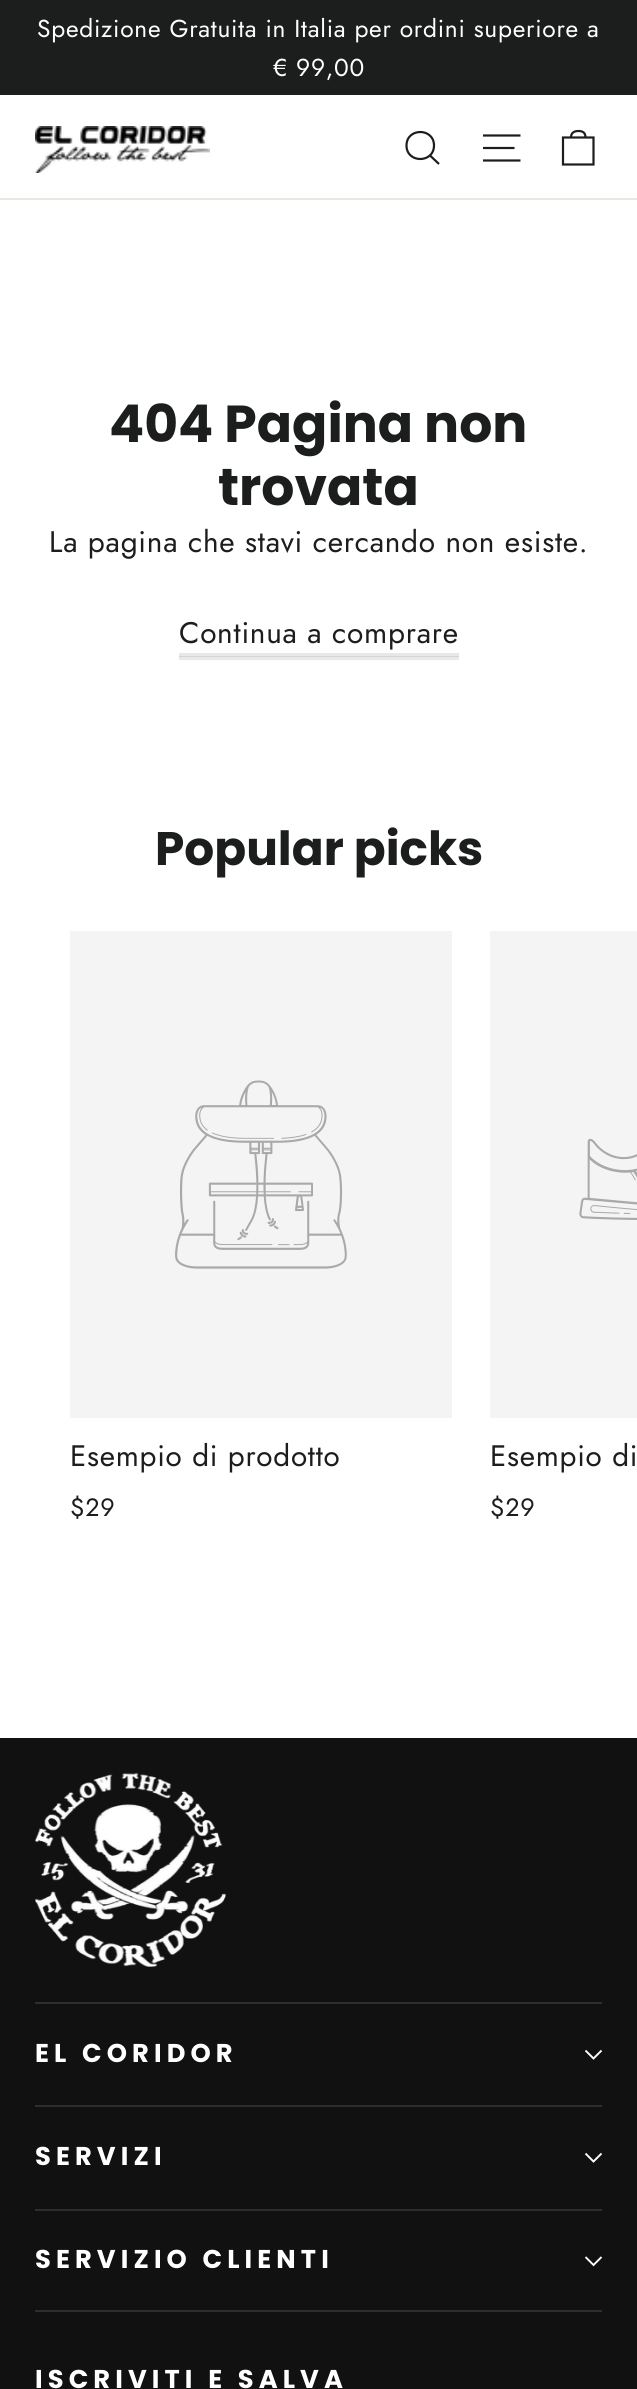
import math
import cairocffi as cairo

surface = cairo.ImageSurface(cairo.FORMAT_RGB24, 637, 2389)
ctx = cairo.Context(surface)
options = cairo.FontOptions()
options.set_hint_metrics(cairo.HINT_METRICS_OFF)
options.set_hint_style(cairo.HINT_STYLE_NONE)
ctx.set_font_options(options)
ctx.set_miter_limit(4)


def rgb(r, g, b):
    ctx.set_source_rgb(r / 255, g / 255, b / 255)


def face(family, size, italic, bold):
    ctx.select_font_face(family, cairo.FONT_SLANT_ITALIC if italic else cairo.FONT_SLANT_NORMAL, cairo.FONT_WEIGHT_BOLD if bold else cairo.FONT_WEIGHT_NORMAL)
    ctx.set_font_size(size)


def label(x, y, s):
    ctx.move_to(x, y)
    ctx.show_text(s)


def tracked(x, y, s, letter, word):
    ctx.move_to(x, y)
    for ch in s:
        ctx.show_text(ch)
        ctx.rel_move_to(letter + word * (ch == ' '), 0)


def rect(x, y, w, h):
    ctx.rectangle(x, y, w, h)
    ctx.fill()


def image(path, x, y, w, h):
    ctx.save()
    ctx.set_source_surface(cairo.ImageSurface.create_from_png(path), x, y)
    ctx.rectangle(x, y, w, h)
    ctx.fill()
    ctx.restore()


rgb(255, 255, 255)
ctx.paint()
rgb(232, 232, 232)
rect(179, 657, 280, 3)
rgb(28, 29, 29)
rect(0, 0, 637, 95)
face('Jost', 24.5, 0, 0)
rgb(255, 255, 255)
tracked(37, 37, 'Spedizione Gratuita in Italia per ordini superiore a', 0.75, 0)
tracked(273, 76, '€ 99,00', 0.75, 0)
rgb(232, 232, 225)
rect(0, 198, 637, 2)
image('image0.png', 35, 126, 175, 47)
ctx.new_path()
ctx.move_to(434, 145.5)
ctx.curve_to(434, 163.5, 406.5, 163.5, 406.5, 145.5)
ctx.curve_to(406.5, 127.5, 434, 127.5, 434, 145.5)
ctx.close_path()
ctx.move_to(439, 164)
ctx.line_to(430, 155.5)
rgb(28, 29, 29)
ctx.set_line_width(2.2)
ctx.stroke()
ctx.new_path()
ctx.move_to(483, 135.5)
ctx.line_to(520.5, 135.5)
ctx.move_to(483, 148)
ctx.line_to(514.5, 148)
ctx.move_to(483, 160.5)
ctx.line_to(520.5, 160.5)
ctx.stroke()
ctx.new_path()
ctx.move_to(563, 137.5)
ctx.line_to(593.5, 137.5)
ctx.line_to(593.5, 164.5)
ctx.line_to(563, 164.5)
ctx.close_path()
ctx.move_to(571, 137.5)
ctx.curve_to(571, 132.5, 574.5, 131, 578.5, 131)
ctx.curve_to(582.5, 131, 585.5, 132.5, 585.5, 137.5)
ctx.stroke()
face('Poppins', 52, 0, 1)
label(109, 442, '404 Pagina non')
label(218, 505, 'trovata')
face('Jost', 29.75, 0, 0)
tracked(49, 552, 'La pagina che stavi cercando non esiste.', 0.75, 0)
tracked(179, 643, 'Continua a comprare', 0.75, 0)
rgb(232, 232, 232)
rect(179, 653, 280, 3)
rgb(212, 212, 212)
rect(179, 656, 280, 1)
face('Poppins', 47, 0, 1)
rgb(28, 29, 29)
label(155, 865, 'Popular picks')
rgb(244, 244, 244)
rect(70, 931, 382, 487)
image('image1.png', 175, 1080, 172, 189)
face('Jost', 29.6, 0, 0)
rgb(28, 29, 29)
tracked(70, 1466, 'Esempio di prodotto', 0.75, 0)
face('Jost', 25, 0, 0)
tracked(70, 1516, '$29', 0.75, 0)
rgb(244, 244, 244)
rect(490, 931, 147, 487)
image('image2.png', 579, 1138, 58, 82)
face('Jost', 29.6, 0, 0)
rgb(28, 29, 29)
tracked(490, 1466, 'Esempio di', 0.75, 0)
face('Jost', 25, 0, 0)
tracked(490, 1516, '$29', 0.75, 0)
rgb(17, 17, 17)
rect(0, 1738, 637, 651)
image('image3.png', 35, 1772, 191, 195)
rgb(46, 46, 46)
rect(35, 2002, 567, 2)
face('Poppins', 25.75, 0, 1)
rgb(255, 255, 255)
tracked(35, 2062, 'EL CORIDOR', 5.1, 0)
ctx.new_path()
ctx.move_to(585.5, 2050.5)
ctx.line_to(593.5, 2058.5)
ctx.line_to(601.5, 2050.5)
ctx.set_line_width(1.9)
ctx.stroke()
rgb(46, 46, 46)
rect(35, 2105, 567, 2)
rgb(255, 255, 255)
tracked(35, 2165, 'SERVIZI', 5.1, 0)
ctx.new_path()
ctx.move_to(585.5, 2153.5)
ctx.line_to(593.5, 2161.5)
ctx.line_to(601.5, 2153.5)
ctx.stroke()
rgb(46, 46, 46)
rect(35, 2209, 567, 2)
rgb(255, 255, 255)
tracked(35, 2268, 'SERVIZIO CLIENTI', 5.1, 0)
ctx.new_path()
ctx.move_to(585.5, 2257)
ctx.line_to(593.5, 2265)
ctx.line_to(601.5, 2257)
ctx.stroke()
rgb(46, 46, 46)
rect(35, 2310, 567, 2)
rgb(255, 255, 255)
tracked(35, 2388, 'ISCRIVITI E SALVA', 5.1, 0)
surface.write_to_png('render.png')
